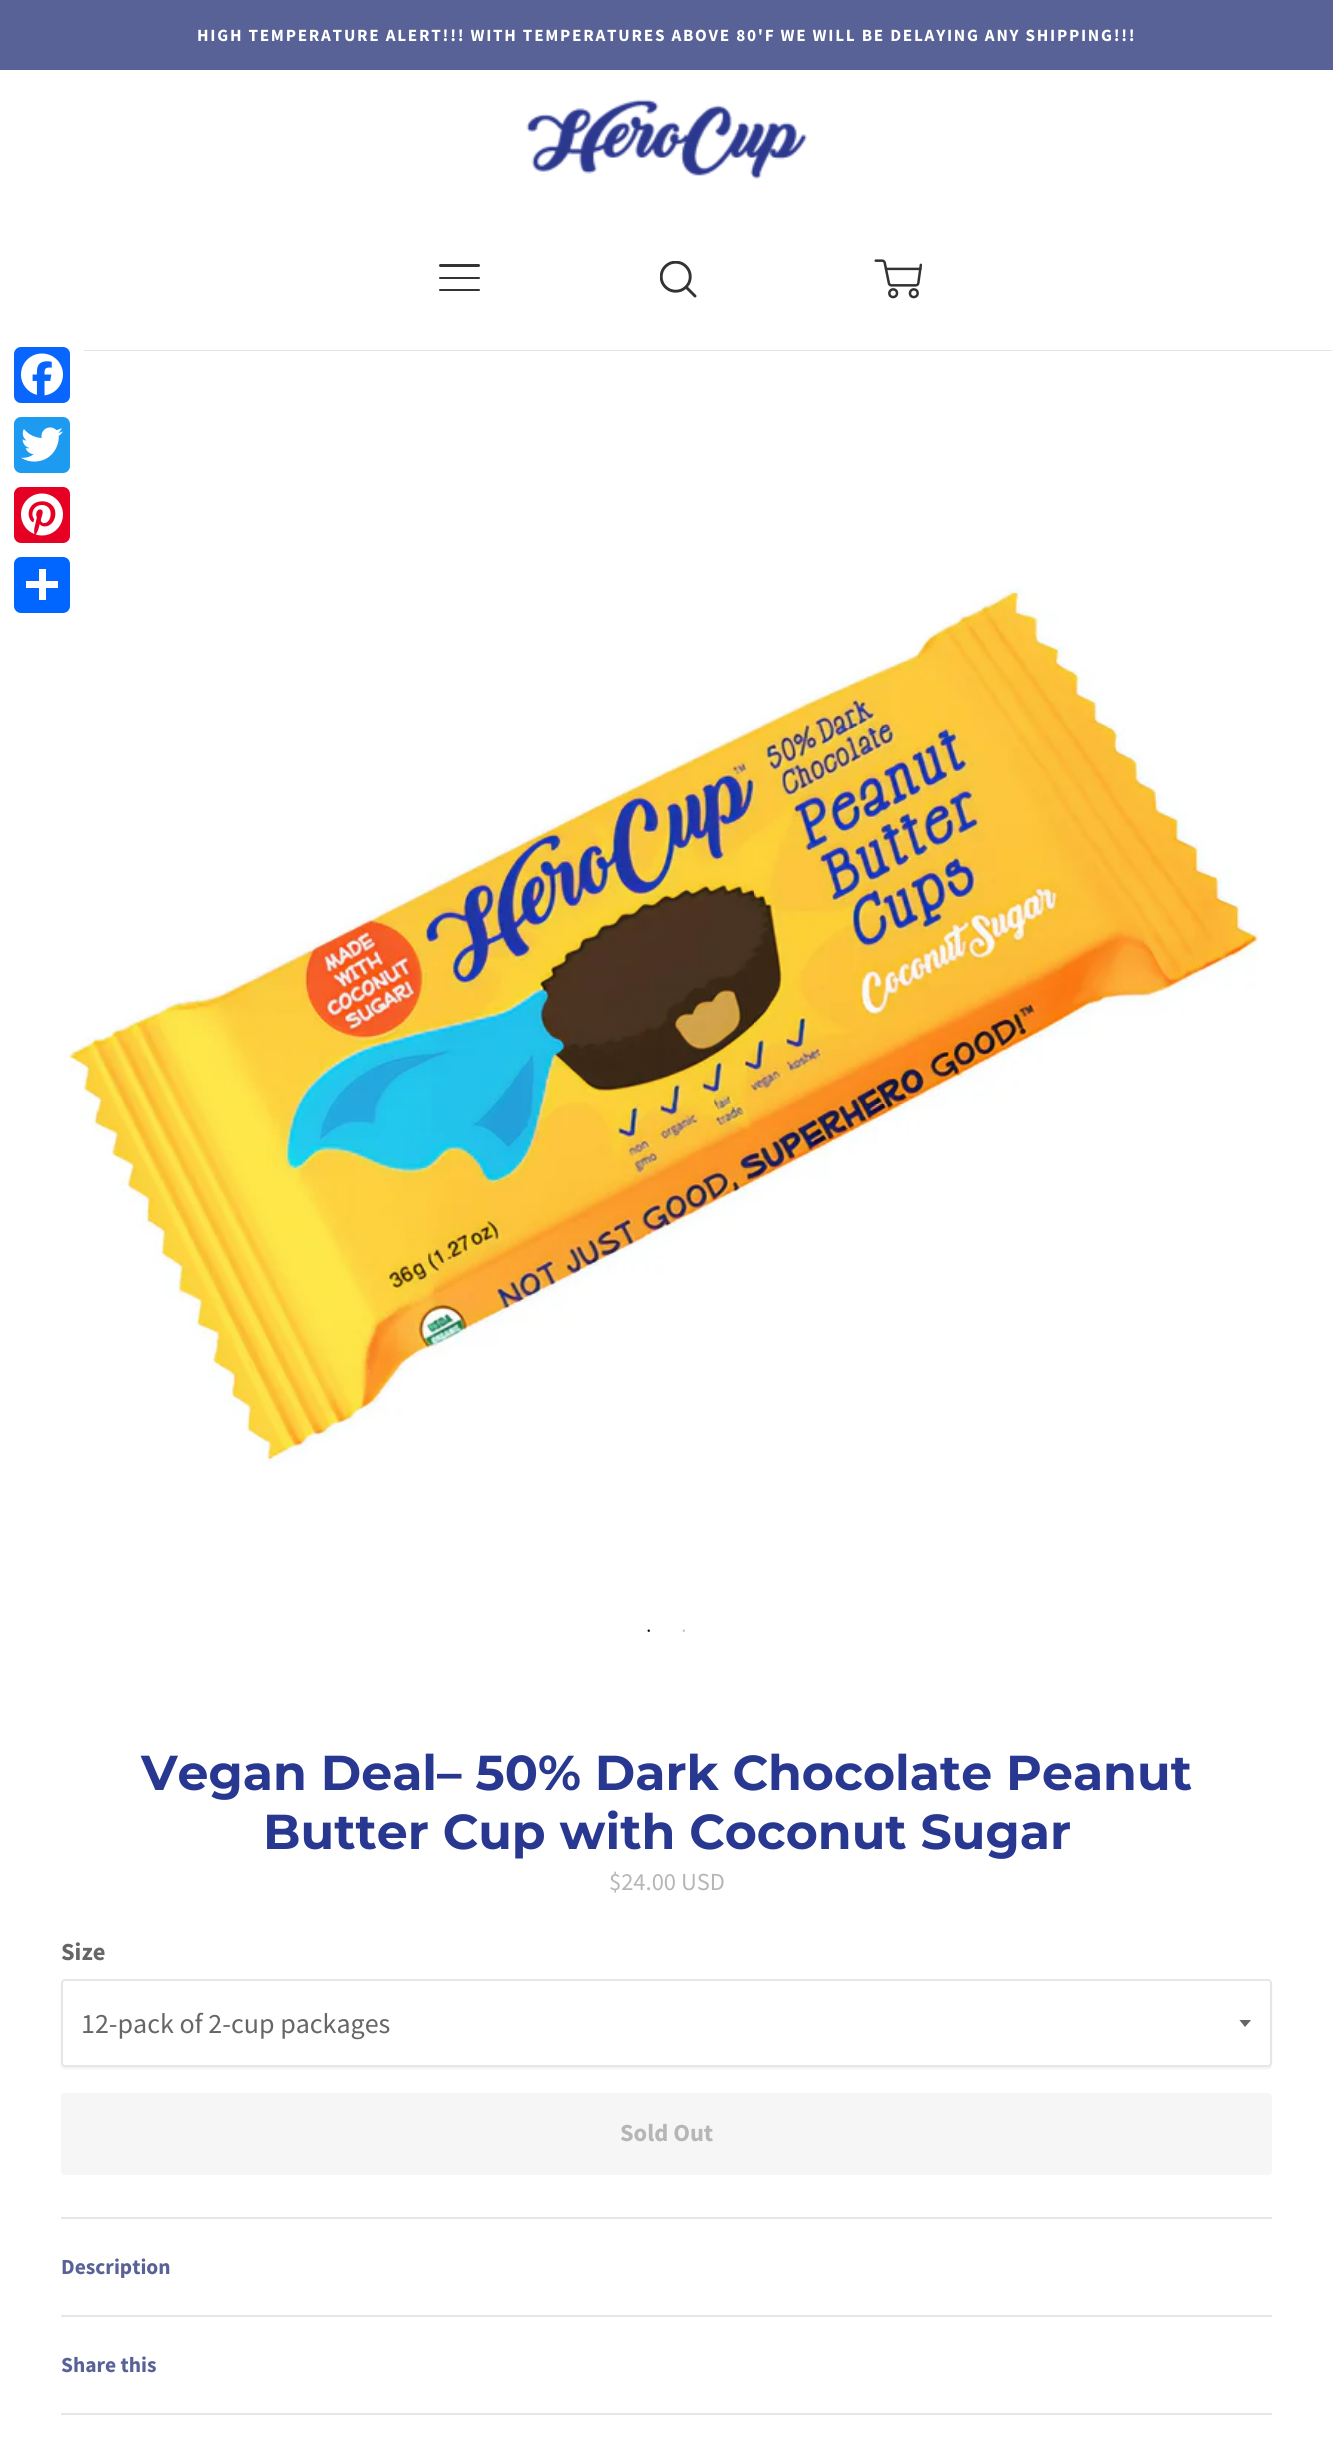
import math
import cairocffi as cairo

surface = cairo.ImageSurface(cairo.FORMAT_RGB24, 1333, 2460)
ctx = cairo.Context(surface)
options = cairo.FontOptions()
options.set_hint_metrics(cairo.HINT_METRICS_OFF)
options.set_hint_style(cairo.HINT_STYLE_NONE)
ctx.set_font_options(options)
ctx.set_miter_limit(4)


def rgb(r, g, b):
    ctx.set_source_rgb(r / 255, g / 255, b / 255)


def face(family, size, italic, bold):
    ctx.select_font_face(family, cairo.FONT_SLANT_ITALIC if italic else cairo.FONT_SLANT_NORMAL, cairo.FONT_WEIGHT_BOLD if bold else cairo.FONT_WEIGHT_NORMAL)
    ctx.set_font_size(size)


def label(x, y, s):
    ctx.move_to(x, y)
    ctx.show_text(s)


def tracked(x, y, s, letter, word):
    ctx.move_to(x, y)
    for ch in s:
        ctx.show_text(ch)
        ctx.rel_move_to(letter + word * (ch == ' '), 0)


def rect(x, y, w, h):
    ctx.rectangle(x, y, w, h)
    ctx.fill()


def rrect(x, y, w, h, r):
    ctx.new_sub_path()
    for i, (u, v) in enumerate([(x + w - r, y + h - r), (x + r, y + h - r), (x + r, y + r), (x + w - r, y + r)]):
        ctx.arc(u, v, r, i * math.pi / 2, (i + 1) * math.pi / 2)
    ctx.close_path()


def soft_shadow(x, y, w, h, r, blur, alpha):
    ctx.push_group_with_content(cairo.CONTENT_ALPHA)
    ctx.set_operator(cairo.OPERATOR_SOURCE)
    for i in range(15, -16, -2):
        e = blur * i / 6
        if min(w, h) + 2 * e > 0:
            ctx.set_source_rgba(0, 0, 0, alpha * math.erfc((i - 1) / 8.5) / 2)
            rrect(x - e, y - e, w + 2 * e, h + 2 * e, max(0, min(r + e + blur * .6, min(w, h) / 2 + e)))
            ctx.fill()
    ctx.mask(ctx.pop_group())


def image(path, x, y, w, h):
    ctx.save()
    ctx.set_source_surface(cairo.ImageSurface.create_from_png(path), x, y)
    ctx.rectangle(x, y, w, h)
    ctx.fill()
    ctx.restore()


rgb(255, 255, 255)
ctx.paint()
rgb(88, 98, 151)
rect(0, 0, 1333, 70)
face('Source Sans Pro', 17.15, 0, 1)
rgb(255, 255, 255)
tracked(197, 41, 'HIGH TEMPERATURE ALERT!!! WITH TEMPERATURES ABOVE 80\'F WE WILL BE DELAYING ANY SHIPPING!!!', 1.75, 0)
image('image0.png', 526, 99, 281, 80)
ctx.save()
ctx.rectangle(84, 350, 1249, 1)
ctx.clip()
rgb(0, 0, 0)
soft_shadow(2, 214, 1330, 136, 0, 1, 0.3)
ctx.restore()
rgb(51, 51, 51)
rrect(439, 264, 41, 3, 1.5)
ctx.fill()
rrect(439, 277, 41, 2, 1)
ctx.fill()
rrect(439, 289, 41, 2, 1)
ctx.fill()
image('image1.png', 660, 261, 37, 37)
image('image2.png', 874, 259, 48, 40)
image('image6.png', 65, 587, 1194, 877)
rgb(255, 255, 255)
rrect(0, 333, 84, 294, 11)
ctx.fill()
rgb(8, 102, 255)
rrect(14, 347, 56, 56, 7)
ctx.fill()
image('image3.png', 21, 353, 42, 43)
rgb(29, 155, 240)
rrect(14, 417, 56, 56, 7)
ctx.fill()
image('image4.png', 21, 427, 42, 35)
rgb(230, 0, 35)
rrect(14, 487, 56, 56, 7)
ctx.fill()
image('image5.png', 21, 493, 42, 43)
rgb(1, 102, 255)
rrect(14, 557, 56, 56, 7)
ctx.fill()
rgb(255, 255, 255)
rect(39, 569, 7, 31)
rect(26, 581, 32, 7)
face('Liberation Serif', 10, 0, 0)
rgb(0, 0, 0)
label(647, 1634, '•')
rgb(191, 191, 191)
label(682, 1634, '•')
face('Montserrat', 49, 0, 1)
rgb(40, 56, 145)
label(141, 1790, 'Vegan Deal– 50% Dark Chocolate Peanut')
label(263, 1849, 'Butter Cup with Coconut Sugar')
face('Source Sans Pro', 24.5, 0, 0)
rgb(182, 182, 182)
label(609, 1890, '$24.00 USD')
face('Source Sans Pro', 24.5, 0, 1)
rgb(102, 102, 102)
label(61, 1960, 'Size')
ctx.save()
ctx.set_fill_rule(cairo.FILL_RULE_EVEN_ODD)
ctx.new_path()
ctx.move_to(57, 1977)
ctx.line_to(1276, 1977)
ctx.line_to(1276, 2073)
ctx.line_to(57, 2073)
ctx.close_path()
ctx.move_to(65, 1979)
ctx.line_to(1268, 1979)
ctx.curve_to(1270, 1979, 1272, 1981, 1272, 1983)
ctx.line_to(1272, 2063)
ctx.curve_to(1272, 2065, 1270, 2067, 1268, 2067)
ctx.line_to(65, 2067)
ctx.curve_to(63, 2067, 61, 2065, 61, 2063)
ctx.line_to(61, 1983)
ctx.curve_to(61, 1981, 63, 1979, 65, 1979)
ctx.close_path()
ctx.clip()
rgb(0, 0, 0)
soft_shadow(61, 1981, 1211, 88, 4, 1, 0.06)
ctx.restore()
ctx.save()
ctx.rectangle(1239, 2020, 14, 8)
ctx.clip()
ctx.new_path()
ctx.move_to(1239, 2019.5)
ctx.line_to(1245, 2027)
ctx.line_to(1251.5, 2019.5)
ctx.close_path()
ctx.fill()
ctx.restore()
rrect(62, 1980, 1209, 86, 3)
rgb(230, 230, 230)
ctx.stroke()
face('Source Sans Pro', 28, 0, 0)
rgb(102, 102, 102)
label(81, 2033, '12-pack of 2-cup packages')
rgb(246, 246, 246)
rrect(61, 2093, 1211, 82, 4)
ctx.fill()
face('Source Sans Pro', 24.5, 0, 1)
rgb(182, 182, 182)
label(620, 2141, 'Sold Out')
rgb(230, 230, 230)
rect(61, 2413, 1211, 2)
rect(61, 2217, 1211, 2)
face('Source Sans Pro', 21.5, 0, 1)
rgb(88, 98, 151)
label(61, 2274, 'Description')
rgb(230, 230, 230)
rect(61, 2315, 1211, 2)
rgb(88, 98, 151)
label(61, 2372, 'Share this')
surface.write_to_png('render.png')
